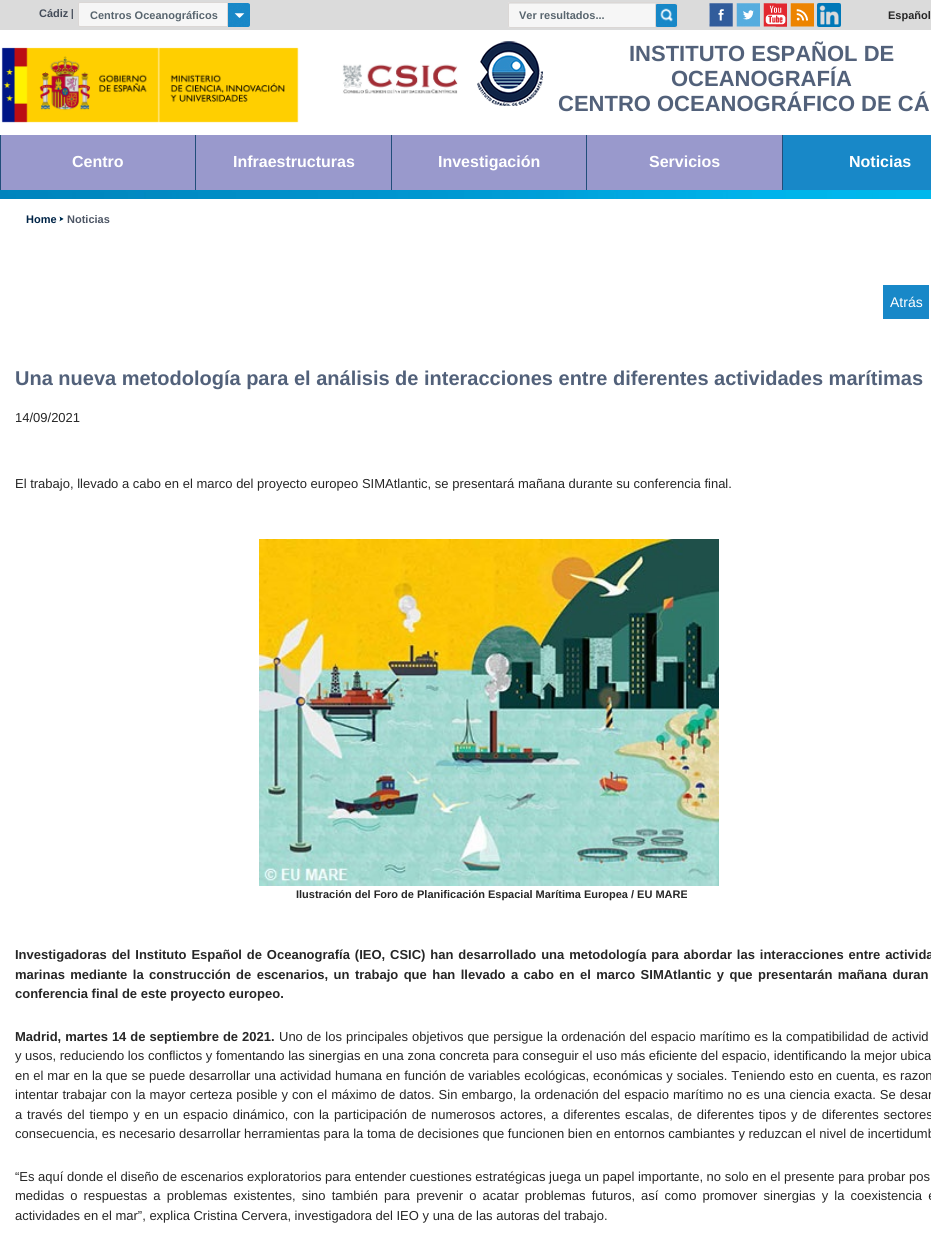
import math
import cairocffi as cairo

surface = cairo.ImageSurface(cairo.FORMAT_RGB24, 931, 1235)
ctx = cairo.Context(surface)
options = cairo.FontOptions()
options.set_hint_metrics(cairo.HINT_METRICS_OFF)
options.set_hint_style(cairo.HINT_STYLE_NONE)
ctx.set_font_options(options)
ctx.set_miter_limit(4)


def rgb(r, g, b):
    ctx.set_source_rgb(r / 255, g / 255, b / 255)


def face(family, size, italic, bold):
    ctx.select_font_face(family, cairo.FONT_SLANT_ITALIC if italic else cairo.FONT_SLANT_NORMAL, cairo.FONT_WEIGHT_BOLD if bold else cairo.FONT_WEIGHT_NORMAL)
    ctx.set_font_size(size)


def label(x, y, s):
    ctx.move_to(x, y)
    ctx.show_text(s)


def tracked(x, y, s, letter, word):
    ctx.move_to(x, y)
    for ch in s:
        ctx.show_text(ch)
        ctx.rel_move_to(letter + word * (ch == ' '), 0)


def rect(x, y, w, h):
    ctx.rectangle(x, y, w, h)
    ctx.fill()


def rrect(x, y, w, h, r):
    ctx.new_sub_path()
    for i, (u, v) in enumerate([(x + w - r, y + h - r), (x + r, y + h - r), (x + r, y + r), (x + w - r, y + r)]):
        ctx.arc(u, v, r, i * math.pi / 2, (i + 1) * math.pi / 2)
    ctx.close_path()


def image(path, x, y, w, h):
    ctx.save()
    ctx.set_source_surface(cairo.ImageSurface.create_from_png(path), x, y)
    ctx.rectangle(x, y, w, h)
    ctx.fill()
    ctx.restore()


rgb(255, 255, 255)
ctx.paint()
image('image0.png', 0, 190, 931, 9)
rgb(219, 219, 219)
rect(0, 0, 931, 30)
image('image1.png', 71, 9, 2, 10)
face('Liberation Sans', 11, 0, 1)
rgb(68, 76, 89)
label(39, 17, 'Cádiz')
rgb(246, 246, 246)
ctx.new_path()
ctx.move_to(80, 2.5)
ctx.line_to(227.5, 2.5)
ctx.line_to(227.5, 26.5)
ctx.line_to(80, 26.5)
ctx.curve_to(79, 26.5, 78.5, 26, 78.5, 25)
ctx.line_to(78.5, 4)
ctx.curve_to(78.5, 3, 79, 2.5, 80, 2.5)
ctx.close_path()
ctx.fill_preserve()
rgb(219, 215, 213)
ctx.set_line_width(1)
ctx.stroke()
rgb(88, 101, 110)
label(90, 19, 'Centros Oceanográficos')
image('image2.png', 228, 3, 22, 24)
rgb(246, 246, 246)
rrect(508, 2, 155, 26, 2)
ctx.fill()
rgb(228, 228, 228)
ctx.new_path()
ctx.move_to(510, 4)
ctx.line_to(661, 4)
ctx.curve_to(662, 4, 662, 4, 662, 5)
ctx.curve_to(662, 4, 662, 3, 661, 3)
ctx.line_to(509, 3)
ctx.line_to(509, 5)
ctx.curve_to(509, 4, 509, 4, 510, 4)
ctx.close_path()
ctx.fill()
rrect(508.5, 2.5, 154, 25, 1.5)
rgb(219, 215, 213)
ctx.stroke()
rgb(88, 101, 110)
label(519, 19, 'Ver resultados...')
ctx.new_path()
ctx.move_to(657, 3.5)
ctx.line_to(677.5, 3.5)
ctx.line_to(677.5, 27.5)
ctx.line_to(657, 27.5)
ctx.curve_to(656, 27.5, 655.5, 27, 655.5, 26)
ctx.line_to(655.5, 5)
ctx.curve_to(655.5, 4, 656, 3.5, 657, 3.5)
ctx.close_path()
rgb(219, 215, 213)
ctx.stroke()
image('image3.png', 656, 4, 21, 23)
image('image4.png', 709, 3, 24, 24)
image('image5.png', 736, 3, 24, 24)
image('image6.png', 763, 3, 24, 24)
image('image7.png', 790, 3, 24, 24)
image('image8.png', 817, 3, 24, 24)
rgb(38, 38, 38)
label(888, 19, 'Español')
image('image9.png', 1, 47, 298, 76)
image('image10.png', 342, 64, 116, 30)
image('image11.png', 477, 41, 66, 65)
face('Liberation Sans', 22, 0, 1)
rgb(82, 97, 122)
label(629, 61, 'INSTITUTO ESPAÑOL DE')
label(671, 86, 'OCEANOGRAFÍA')
label(558, 111, 'CENTRO OCEANOGRÁFICO DE CÁ')
rgb(153, 153, 204)
rect(1, 135, 781, 55)
rgb(33, 78, 122)
rect(195, 135, 1, 55)
rect(0, 135, 1, 55)
face('Liberation Sans', 16, 0, 1)
rgb(255, 255, 255)
label(72, 167, 'Centro')
rgb(33, 78, 122)
rect(391, 135, 1, 55)
rgb(255, 255, 255)
label(233, 167, 'Infraestructuras')
rgb(33, 78, 122)
rect(586, 135, 1, 55)
rgb(255, 255, 255)
label(438, 167, 'Investigación')
rgb(33, 78, 122)
rect(782, 135, 1, 55)
rgb(255, 255, 255)
label(649, 167, 'Servicios')
rgb(24, 136, 200)
rect(783, 135, 148, 55)
rgb(255, 255, 255)
label(849, 167, 'Noticias')
face('Liberation Sans', 11, 0, 1)
rgb(0, 36, 71)
label(26, 223, 'Home')
image('image12.png', 59, 216, 5, 6)
rgb(78, 87, 102)
label(67, 223, 'Noticias')
rgb(24, 136, 200)
rect(883, 285, 46, 34)
face('Liberation Sans', 14, 0, 0)
rgb(255, 255, 255)
label(890, 307, 'Atrás')
face('Liberation Sans', 20, 0, 1)
rgb(82, 97, 122)
label(15, 385, 'Una nueva metodología para el análisis de interacciones entre diferentes actividades marítimas')
face('Liberation Sans', 13, 0, 0)
rgb(38, 38, 38)
label(15, 422, '14/09/2021')
label(15, 488, 'El trabajo, llevado a cabo en el marco del proyecto europeo SIMAtlantic, se presentará mañana durante su conferencia final.')
image('image13.png', 259, 539, 460, 347)
face('Liberation Sans', 11, 0, 1)
label(296, 898, 'Ilustración del Foro de Planificación Espacial Marítima Europea / EU MARE')
face('Liberation Sans', 13, 0, 1)
tracked(15, 959, 'Investigadoras del Instituto Español de Oceanografía (IEO, CSIC) han desarrollado una metodología para abordar las interacciones entre activida', 0, 1.25)
tracked(15, 979, 'marinas mediante la construcción de escenarios, un trabajo que han llevado a cabo en el marco SIMAtlantic y que presentarán mañana duran', 0, 1.8)
label(15, 998, 'conferencia final de este proyecto europeo.')
tracked(15, 1041, 'Madrid, martes 14 de septiembre de 2021.', 0, 0.4)
face('Liberation Sans', 13, 0, 0)
tracked(279, 1041, 'Uno de los principales objetivos que persigue la ordenación del espacio marítimo es la compatibilidad de activid', 0, 0.4)
label(15, 1060, 'y usos, reduciendo los conflictos y fomentando las sinergias en una zona concreta para conseguir el uso más eficiente del espacio, identificando la mejor ubica')
tracked(15, 1080, 'en el mar en la que se puede desarrollar una actividad humana en función de variables ecológicas, económicas y sociales. Teniendo esto en cuenta, es razon', 0, 0.25)
tracked(15, 1099, 'intentar trabajar con la mayor certeza posible y con el máximo de datos. Sin embargo, la ordenación del espacio marítimo no es una ciencia exacta. Se desar', 0, 0.4)
tracked(15, 1119, 'a través del tiempo y en un espacio dinámico, con la participación de numerosos actores, a diferentes escalas, de diferentes tipos y de diferentes sectores', 0, 1.2)
label(15, 1138, 'consecuencia, es necesario desarrollar herramientas para la toma de decisiones que funcionen bien en entornos cambiantes y reduzcan el nivel de incertidumb')
label(15, 1181, '“Es aquí donde el diseño de escenarios exploratorios para entender cuestiones estratégicas juega un papel importante, no solo en el presente para probar pos')
tracked(15, 1200, 'medidas o respuestas a problemas existentes, sino también para prevenir o acatar problemas futuros, así como promover sinergias y la coexistencia e', 0, 2.5)
label(15, 1220, 'actividades en el mar”, explica Cristina Cervera, investigadora del IEO y una de las autoras del trabajo.')
surface.write_to_png('render.png')
